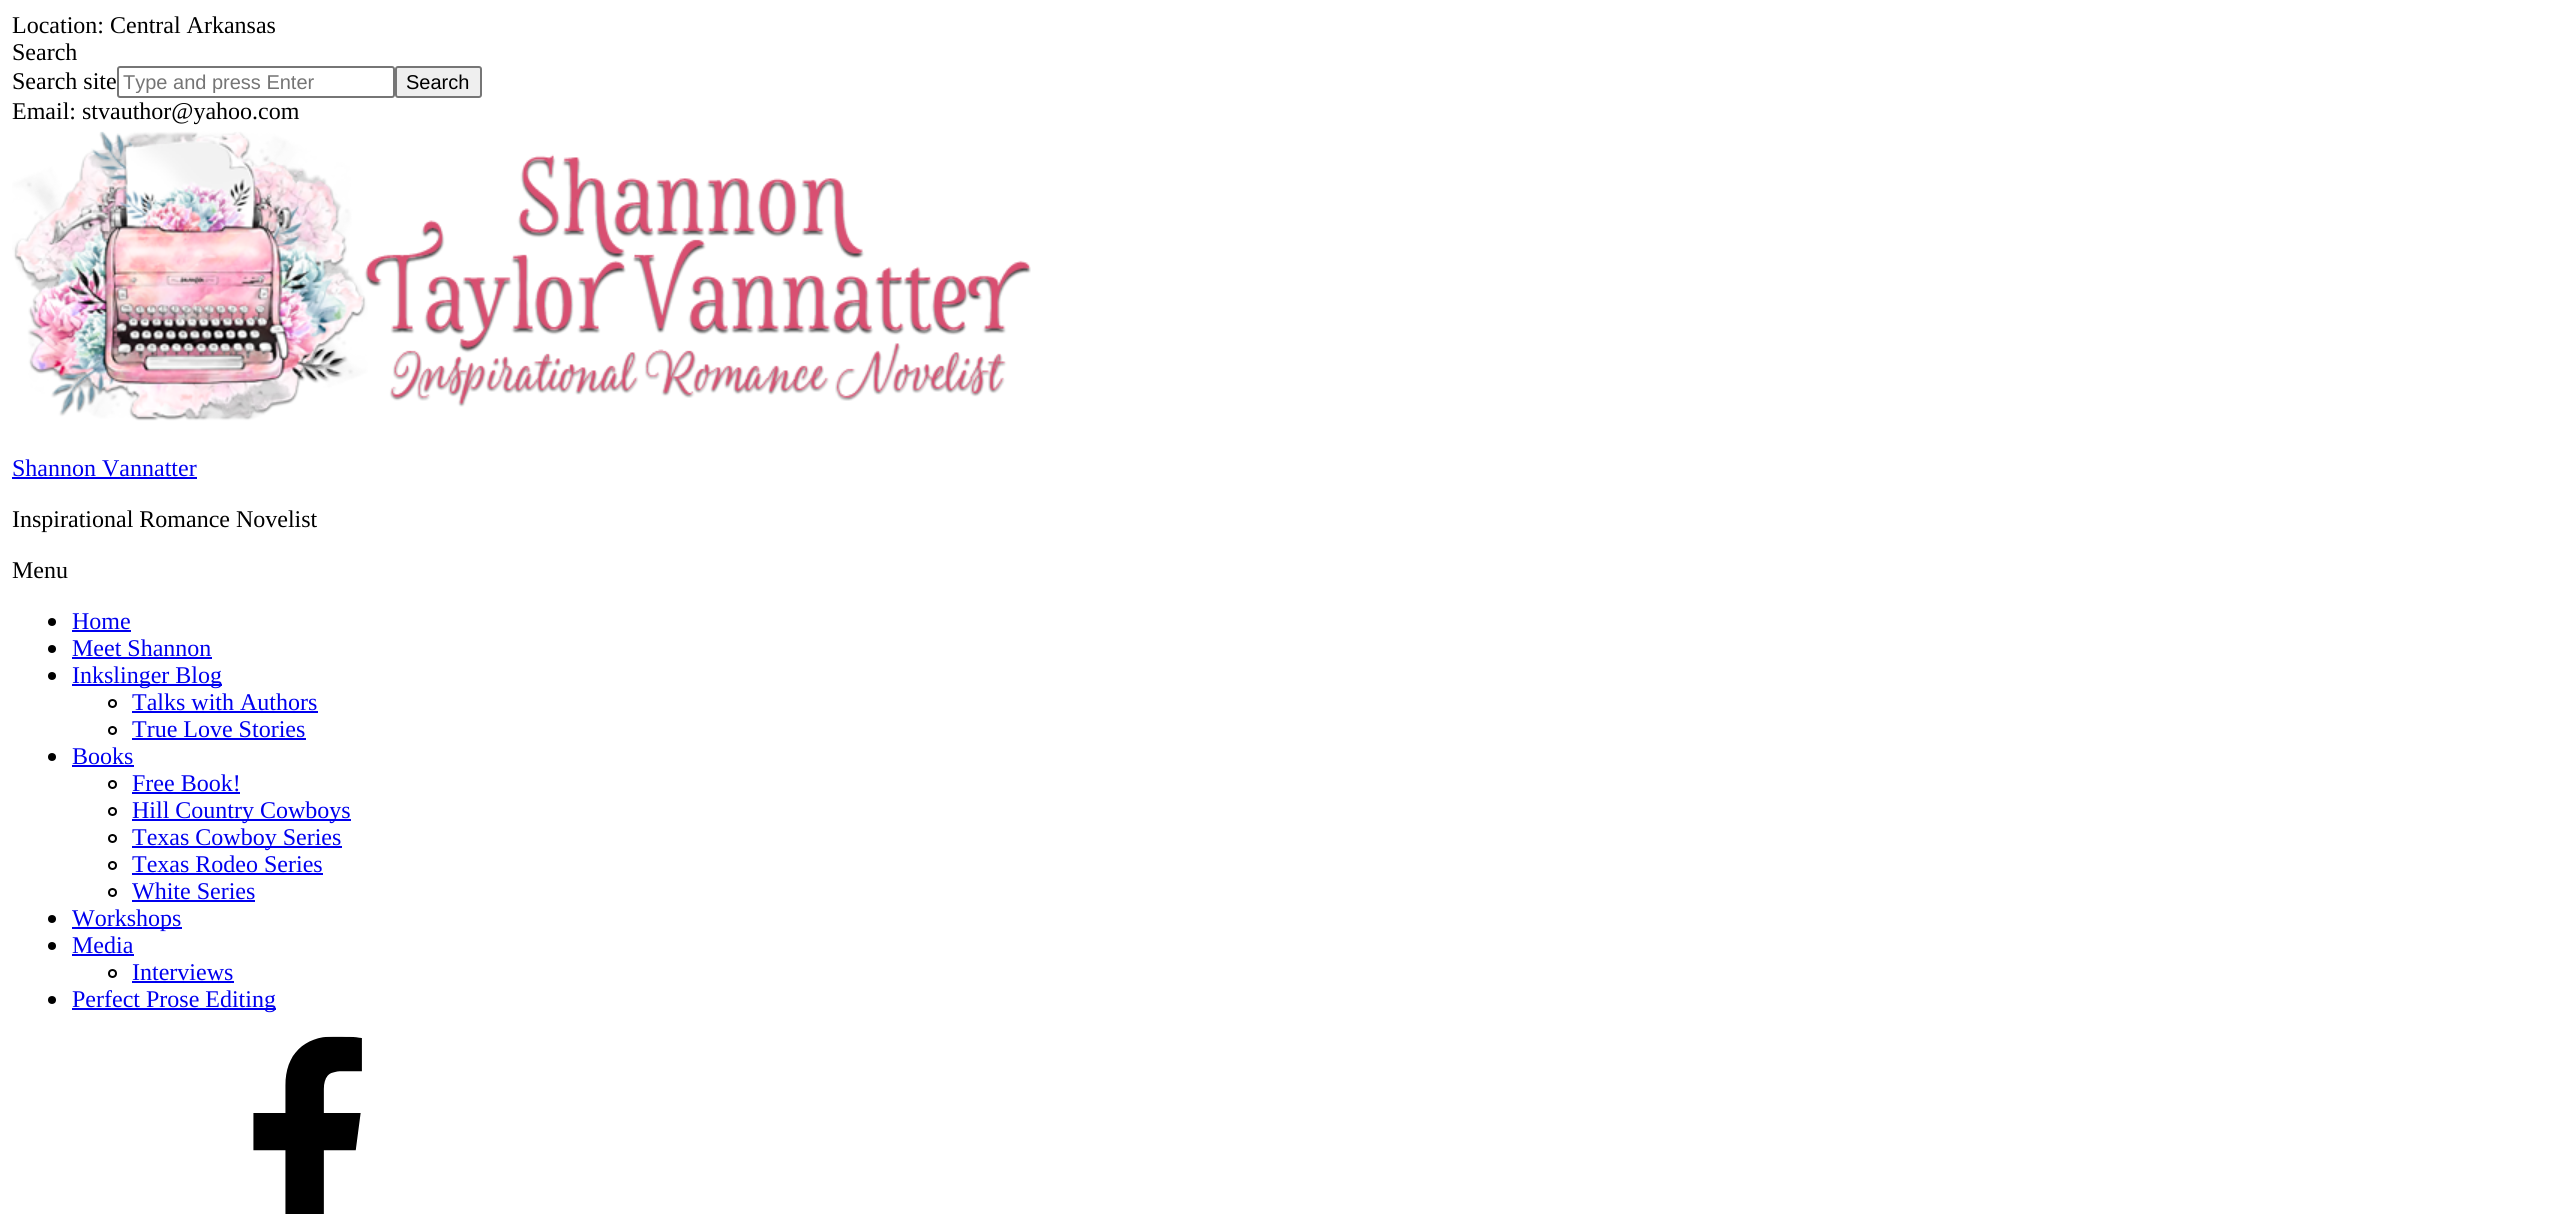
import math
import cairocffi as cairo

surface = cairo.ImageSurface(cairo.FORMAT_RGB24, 2562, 1214)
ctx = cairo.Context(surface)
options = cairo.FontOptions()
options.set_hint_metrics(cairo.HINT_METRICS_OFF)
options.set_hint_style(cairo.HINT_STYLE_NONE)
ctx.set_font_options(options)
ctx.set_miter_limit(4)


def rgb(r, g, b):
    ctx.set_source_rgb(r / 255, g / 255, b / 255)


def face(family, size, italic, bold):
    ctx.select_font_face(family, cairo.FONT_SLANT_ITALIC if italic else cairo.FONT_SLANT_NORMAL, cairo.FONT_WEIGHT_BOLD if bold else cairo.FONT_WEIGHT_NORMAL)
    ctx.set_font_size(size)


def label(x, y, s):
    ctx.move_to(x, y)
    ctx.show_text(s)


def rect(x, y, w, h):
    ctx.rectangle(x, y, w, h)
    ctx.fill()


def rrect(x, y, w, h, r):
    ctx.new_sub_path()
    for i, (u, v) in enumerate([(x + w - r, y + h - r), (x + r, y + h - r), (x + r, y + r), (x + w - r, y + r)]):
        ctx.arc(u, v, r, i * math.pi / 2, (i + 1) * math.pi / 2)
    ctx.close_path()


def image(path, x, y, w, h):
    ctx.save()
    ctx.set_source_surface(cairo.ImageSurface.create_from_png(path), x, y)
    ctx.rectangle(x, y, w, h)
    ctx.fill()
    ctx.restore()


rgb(255, 255, 255)
ctx.paint()
face('Liberation Serif', 24, 0, 0)
rgb(0, 0, 0)
label(12, 33, 'Location: Central Arkansas')
label(12, 60, 'Search')
label(12, 89, 'Search site')
rrect(118, 67, 276, 30, 2)
rgb(118, 118, 118)
ctx.stroke()
ctx.save()
ctx.rectangle(123, 71, 246, 22)
ctx.clip()
face('Liberation Sans', 20, 0, 0)
rgb(117, 117, 117)
label(123, 89, 'Type and press Enter')
ctx.restore()
rgb(239, 239, 239)
rrect(396, 67, 85, 30, 2)
ctx.fill_preserve()
rgb(118, 118, 118)
ctx.stroke()
face('Liberation Sans', 20, 0, 0)
rgb(0, 0, 0)
label(406, 89, 'Search')
face('Liberation Serif', 24, 0, 0)
label(12, 119, 'Email: stvauthor@yahoo.com')
image('image0.png', 12, 131, 1019, 290)
rgb(0, 0, 238)
label(12, 476, 'Shannon Vannatter')
rect(12, 477, 185, 2)
rgb(0, 0, 0)
label(12, 527, 'Inspirational Romance Novelist')
label(12, 578, 'Menu')
ctx.new_path()
ctx.arc(52, 622, 4, 0, 2 * math.pi)
ctx.fill()
rgb(0, 0, 238)
label(72, 629, 'Home')
rect(72, 630, 59, 2)
rgb(0, 0, 0)
ctx.new_path()
ctx.arc(52, 649, 4, 0, 2 * math.pi)
ctx.fill()
rgb(0, 0, 238)
label(72, 656, 'Meet Shannon')
rect(72, 657, 140, 2)
rgb(0, 0, 0)
ctx.new_path()
ctx.arc(52, 676, 4, 0, 2 * math.pi)
ctx.fill()
rgb(0, 0, 238)
rect(72, 684, 150, 2)
label(72, 683, 'Inkslinger Blog')
ctx.new_path()
ctx.arc(112.5, 703.5, 3.5, 0, 2 * math.pi)
rgb(0, 0, 0)
ctx.stroke()
rgb(0, 0, 238)
label(132, 710, 'Talks with Authors')
rect(132, 711, 186, 2)
ctx.new_path()
ctx.arc(112.5, 730.5, 3.5, 0, 2 * math.pi)
rgb(0, 0, 0)
ctx.stroke()
rgb(0, 0, 238)
label(132, 737, 'True Love Stories')
rect(132, 738, 174, 2)
rgb(0, 0, 0)
ctx.new_path()
ctx.arc(52, 757, 4, 0, 2 * math.pi)
ctx.fill()
rgb(0, 0, 238)
label(72, 764, 'Books')
rect(72, 765, 62, 2)
ctx.new_path()
ctx.arc(112.5, 784.5, 3.5, 0, 2 * math.pi)
rgb(0, 0, 0)
ctx.stroke()
rgb(0, 0, 238)
label(132, 791, 'Free Book!')
rect(132, 792, 108, 2)
ctx.new_path()
ctx.arc(112.5, 811.5, 3.5, 0, 2 * math.pi)
rgb(0, 0, 0)
ctx.stroke()
rgb(0, 0, 238)
rect(132, 819, 219, 2)
label(132, 818, 'Hill Country Cowboys')
ctx.new_path()
ctx.arc(112.5, 838.5, 3.5, 0, 2 * math.pi)
rgb(0, 0, 0)
ctx.stroke()
rgb(0, 0, 238)
rect(132, 846, 210, 2)
label(132, 845, 'Texas Cowboy Series')
ctx.new_path()
ctx.arc(112.5, 865.5, 3.5, 0, 2 * math.pi)
rgb(0, 0, 0)
ctx.stroke()
rgb(0, 0, 238)
label(132, 872, 'Texas Rodeo Series')
rect(132, 873, 191, 2)
ctx.new_path()
ctx.arc(112.5, 892.5, 3.5, 0, 2 * math.pi)
rgb(0, 0, 0)
ctx.stroke()
rgb(0, 0, 238)
label(132, 899, 'White Series')
rect(132, 900, 123, 2)
rgb(0, 0, 0)
ctx.new_path()
ctx.arc(52, 919, 4, 0, 2 * math.pi)
ctx.fill()
rgb(0, 0, 238)
rect(72, 927, 110, 2)
label(72, 926, 'Workshops')
rgb(0, 0, 0)
ctx.new_path()
ctx.arc(52, 946, 4, 0, 2 * math.pi)
ctx.fill()
rgb(0, 0, 238)
label(72, 953, 'Media')
rect(72, 954, 62, 2)
ctx.new_path()
ctx.arc(112.5, 973.5, 3.5, 0, 2 * math.pi)
rgb(0, 0, 0)
ctx.stroke()
rgb(0, 0, 238)
label(132, 980, 'Interviews')
rect(132, 981, 102, 2)
rgb(0, 0, 0)
ctx.new_path()
ctx.arc(52, 1000, 4, 0, 2 * math.pi)
ctx.fill()
rgb(0, 0, 238)
rect(72, 1008, 204, 2)
label(72, 1007, 'Perfect Prose Editing')
image('image1.png', 253, 1036, 109, 178)
surface.write_to_png('render.png')
